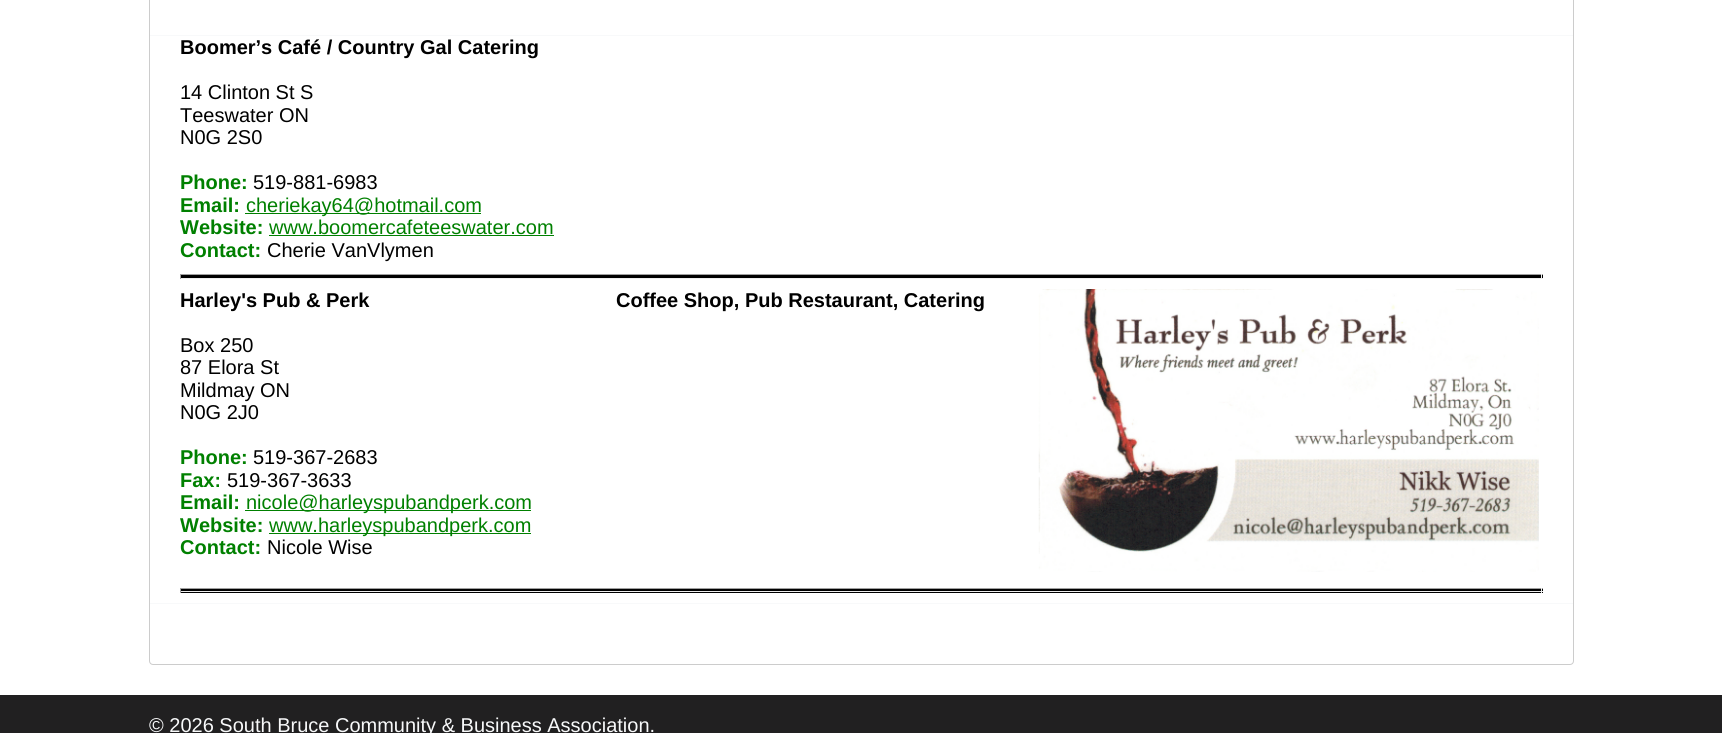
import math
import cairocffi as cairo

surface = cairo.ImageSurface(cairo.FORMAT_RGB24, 1722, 733)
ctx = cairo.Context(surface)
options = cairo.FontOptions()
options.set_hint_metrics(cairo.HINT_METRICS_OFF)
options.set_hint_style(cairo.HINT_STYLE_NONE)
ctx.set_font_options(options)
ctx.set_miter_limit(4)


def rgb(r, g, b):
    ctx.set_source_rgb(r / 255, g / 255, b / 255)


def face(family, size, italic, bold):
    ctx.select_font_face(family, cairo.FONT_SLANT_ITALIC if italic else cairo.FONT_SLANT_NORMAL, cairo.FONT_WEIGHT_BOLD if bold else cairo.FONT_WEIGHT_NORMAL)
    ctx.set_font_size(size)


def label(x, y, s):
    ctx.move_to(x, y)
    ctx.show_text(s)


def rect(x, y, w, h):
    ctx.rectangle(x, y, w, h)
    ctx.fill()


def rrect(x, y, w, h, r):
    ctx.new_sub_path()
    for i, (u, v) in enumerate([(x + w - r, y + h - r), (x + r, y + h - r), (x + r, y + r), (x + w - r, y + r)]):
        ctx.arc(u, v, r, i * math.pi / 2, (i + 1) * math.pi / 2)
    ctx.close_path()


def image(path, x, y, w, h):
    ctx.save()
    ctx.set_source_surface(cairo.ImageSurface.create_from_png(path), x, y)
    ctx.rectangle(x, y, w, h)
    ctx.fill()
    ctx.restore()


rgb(255, 255, 255)
ctx.paint()
rrect(149.5, -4.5, 1424, 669, 3.5)
rgb(204, 204, 204)
ctx.set_line_width(1)
ctx.stroke()
rgb(248, 249, 250)
rect(150, 35, 1423, 1)
face('Liberation Sans', 20, 0, 1)
rgb(0, 0, 0)
label(180, 54, 'Boomer’s Café / Country Gal Catering')
face('Liberation Sans', 20, 0, 0)
label(180, 99, '14 Clinton St S')
label(180, 122, 'Teeswater ON')
label(180, 144, 'N0G 2S0')
face('Liberation Sans', 20, 0, 1)
rgb(0, 128, 0)
label(180, 189, 'Phone:')
face('Liberation Sans', 20, 0, 0)
rgb(0, 0, 0)
label(253, 189, '519-881-6983')
face('Liberation Sans', 20, 0, 1)
rgb(0, 128, 0)
label(180, 212, 'Email:')
rect(245, 213, 236, 1)
face('Liberation Sans', 20, 0, 0)
label(246, 212, 'cheriekay64@hotmail.com')
face('Liberation Sans', 20, 0, 1)
label(180, 234, 'Website:')
face('Liberation Sans', 20, 0, 0)
label(269, 234, 'www.boomercafeteeswater.com')
rect(269, 235, 285, 1)
face('Liberation Sans', 20, 0, 1)
label(180, 257, 'Contact:')
face('Liberation Sans', 20, 0, 0)
rgb(0, 0, 0)
label(267, 257, 'Cherie VanVlymen')
rect(180, 275, 1363, 3)
rgb(159, 159, 159)
rect(180, 274, 1363, 1)
rgb(238, 238, 238)
rect(1541, 274, 1, 5)
rect(180, 278, 1363, 1)
rgb(159, 159, 159)
rect(180, 274, 1, 5)
face('Liberation Sans', 20, 0, 1)
rgb(0, 0, 0)
label(180, 307, 'Harley\'s Pub & Perk')
face('Liberation Sans', 20, 0, 0)
label(180, 352, 'Box 250')
label(180, 374, '87 Elora St')
label(180, 397, 'Mildmay ON')
label(180, 419, 'N0G 2J0')
face('Liberation Sans', 20, 0, 1)
rgb(0, 128, 0)
label(180, 464, 'Phone:')
face('Liberation Sans', 20, 0, 0)
rgb(0, 0, 0)
label(253, 464, '519-367-2683')
face('Liberation Sans', 20, 0, 1)
rgb(0, 128, 0)
label(180, 487, 'Fax:')
face('Liberation Sans', 20, 0, 0)
rgb(0, 0, 0)
label(227, 487, '519-367-3633')
face('Liberation Sans', 20, 0, 1)
rgb(0, 128, 0)
label(180, 509, 'Email:')
rect(245, 510, 286, 1)
face('Liberation Sans', 20, 0, 0)
label(246, 509, 'nicole@harleyspubandperk.com')
face('Liberation Sans', 20, 0, 1)
label(180, 532, 'Website:')
rect(269, 533, 262, 1)
face('Liberation Sans', 20, 0, 0)
label(269, 532, 'www.harleyspubandperk.com')
face('Liberation Sans', 20, 0, 1)
label(180, 554, 'Contact:')
face('Liberation Sans', 20, 0, 0)
rgb(0, 0, 0)
label(267, 554, 'Nicole Wise')
face('Liberation Sans', 20, 0, 1)
label(616, 307, 'Coffee Shop, Pub Restaurant, Catering')
image('image0.png', 1038, 289, 501, 283)
rect(180, 589, 1363, 4)
rgb(159, 159, 159)
rect(180, 588, 1363, 1)
rgb(238, 238, 238)
rect(1541, 588, 1, 5)
rect(180, 591, 1363, 1)
rgb(159, 159, 159)
rect(180, 588, 1, 5)
rgb(248, 249, 250)
rect(150, 603, 1423, 1)
rgb(33, 32, 33)
rect(0, 695, 1722, 38)
face('Liberation Sans', 20, 0, 0)
rgb(248, 249, 250)
label(149, 732, '© 2026 South Bruce Community & Business Association.')
surface.write_to_png('render.png')
